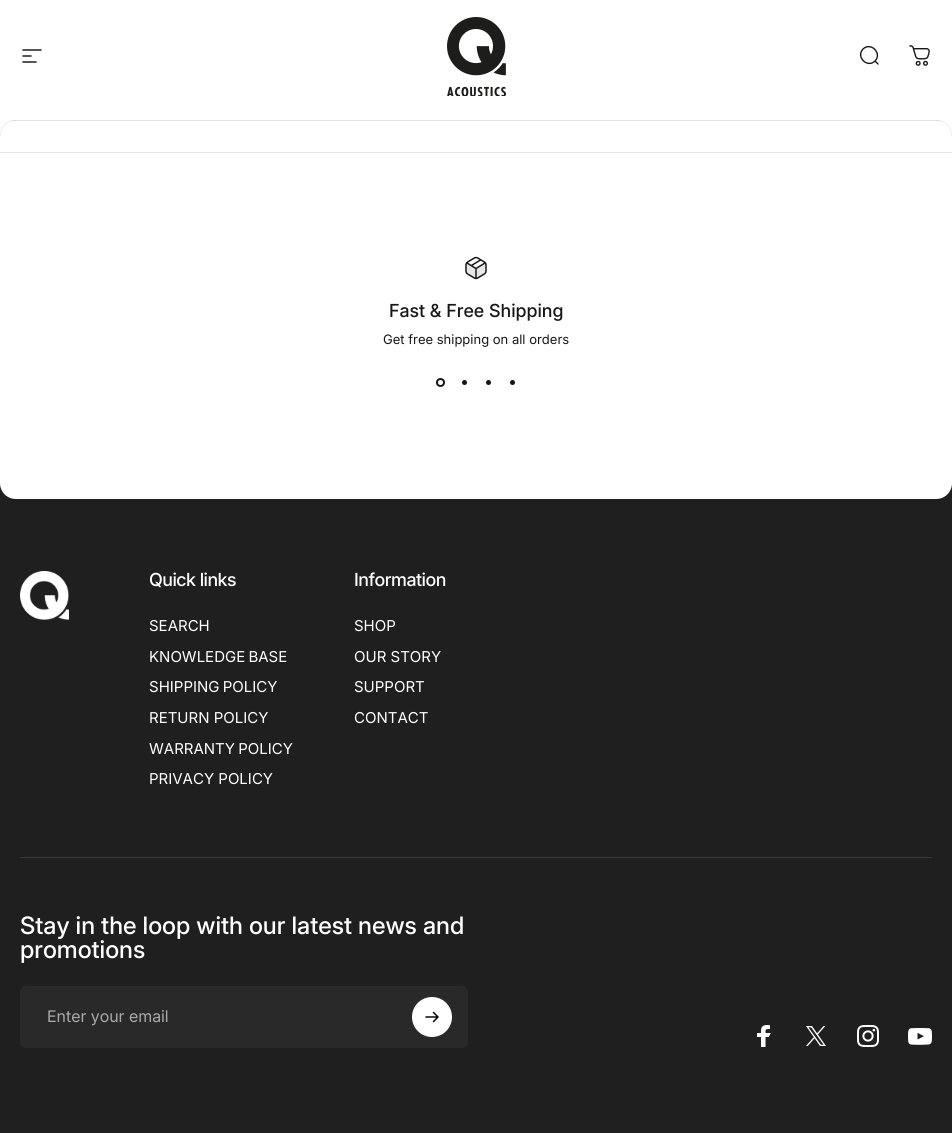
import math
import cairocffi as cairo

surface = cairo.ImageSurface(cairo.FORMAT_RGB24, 952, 1133)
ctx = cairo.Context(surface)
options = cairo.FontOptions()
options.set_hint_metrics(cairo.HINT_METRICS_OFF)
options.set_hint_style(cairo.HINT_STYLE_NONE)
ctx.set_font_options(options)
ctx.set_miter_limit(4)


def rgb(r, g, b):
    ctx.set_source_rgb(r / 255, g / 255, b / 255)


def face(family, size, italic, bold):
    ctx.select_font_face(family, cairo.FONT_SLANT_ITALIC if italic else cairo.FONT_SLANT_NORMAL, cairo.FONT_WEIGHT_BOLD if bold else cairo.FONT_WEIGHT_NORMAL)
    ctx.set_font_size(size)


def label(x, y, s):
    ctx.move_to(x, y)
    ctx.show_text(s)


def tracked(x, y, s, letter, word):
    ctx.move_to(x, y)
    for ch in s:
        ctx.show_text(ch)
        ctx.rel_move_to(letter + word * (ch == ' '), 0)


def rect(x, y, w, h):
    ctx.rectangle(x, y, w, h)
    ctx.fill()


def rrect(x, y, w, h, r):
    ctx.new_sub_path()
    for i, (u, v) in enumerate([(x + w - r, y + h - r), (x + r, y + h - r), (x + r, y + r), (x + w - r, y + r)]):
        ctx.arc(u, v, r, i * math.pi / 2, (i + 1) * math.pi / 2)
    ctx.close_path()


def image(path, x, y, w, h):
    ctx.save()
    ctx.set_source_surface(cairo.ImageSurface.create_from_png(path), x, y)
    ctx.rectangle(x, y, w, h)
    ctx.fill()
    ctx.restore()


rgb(255, 255, 255)
ctx.paint()
ctx.new_path()
ctx.move_to(23, 50)
ctx.line_to(41, 50)
ctx.move_to(23, 56)
ctx.line_to(31, 56)
ctx.move_to(23, 62)
ctx.line_to(36, 62)
rgb(23, 23, 23)
ctx.set_line_width(1.5)
ctx.set_line_cap(cairo.LINE_CAP_ROUND)
ctx.stroke()
image('image0.png', 447, 17, 59, 79)
ctx.new_path()
ctx.move_to(878, 64)
ctx.line_to(875, 61)
ctx.move_to(875, 61)
ctx.curve_to(882.5, 53.5, 871, 41.5, 863, 49)
ctx.curve_to(855.5, 57, 867.5, 68.5, 875, 61)
ctx.close_path()
ctx.set_line_width(1.4)
ctx.stroke()
image('image1.png', 909, 45, 21, 21)
rgb(229, 229, 229)
rect(11, 120, 930, 1)
image('image2.png', 0, 120, 16, 16)
image('image3.png', 936, 120, 16, 16)
rgb(31, 31, 31)
rect(0, 483, 952, 637)
rgb(255, 255, 255)
ctx.new_path()
ctx.move_to(0, 152)
ctx.line_to(952, 152)
ctx.line_to(952, 483)
ctx.curve_to(952, 492, 945, 499, 936, 499)
ctx.line_to(16, 499)
ctx.curve_to(7, 499, 0, 492, 0, 483)
ctx.close_path()
ctx.fill()
rgb(232, 232, 232)
rect(0, 152, 952, 1)
image('image4.png', 465, 256, 22, 24)
face('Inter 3 Medium', 18, 0, 0)
rgb(23, 23, 23)
label(389, 317, 'Fast & Free Shipping')
face('Inter', 13, 0, 0)
label(383, 344, 'Get free shipping on all orders')
ctx.new_path()
ctx.arc(440.5, 382.5, 3.5, 0, 2 * math.pi)
ctx.set_line_width(2)
ctx.set_line_cap(cairo.LINE_CAP_BUTT)
ctx.stroke()
ctx.arc(464.5, 382.5, 2.5, 0, 2 * math.pi)
ctx.fill()
ctx.arc(488.5, 382.5, 2.5, 0, 2 * math.pi)
ctx.fill()
ctx.arc(512.5, 382.5, 2.5, 0, 2 * math.pi)
ctx.fill()
image('image5.png', 20, 571, 49, 49)
face('Inter Medium', 18, 0, 0)
rgb(255, 255, 255)
tracked(149, 586, 'Quick links', -0.5, 0)
face('Inter', 15, 0, 0)
label(149, 631, 'SEARCH')
tracked(149, 662, 'KNOWLEDGE BASE', 0, -1)
tracked(149, 692, 'SHIPPING POLICY', 0, -1)
label(149, 723, 'RETURN POLICY')
tracked(149, 754, 'WARRANTY POLICY', 0, -1)
label(149, 784, 'PRIVACY POLICY')
face('Inter Medium', 18, 0, 0)
tracked(354, 586, 'Information', -0.5, 0)
face('Inter', 15, 0, 0)
label(354, 631, 'SHOP')
label(354, 662, 'OUR STORY')
label(354, 692, 'SUPPORT')
label(354, 723, 'CONTACT')
rgb(57, 57, 57)
rect(20, 857, 912, 1)
face('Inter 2 Medium', 24, 0, 0)
rgb(255, 255, 255)
label(20, 934, 'Stay in the loop with our latest news and')
label(20, 958, 'promotions')
rgb(41, 41, 41)
rrect(20, 986, 448, 62, 6)
ctx.fill()
face('Inter 2', 16, 0, 0)
rgb(169, 169, 169)
label(47, 1022, 'Enter your email')
rgb(255, 255, 255)
ctx.new_path()
ctx.arc(432, 1017, 19, 0, 2 * math.pi)
ctx.fill_preserve()
ctx.stroke()
ctx.new_path()
ctx.move_to(426, 1017)
ctx.line_to(438, 1017)
ctx.move_to(438, 1017)
ctx.line_to(433.5, 1012.5)
ctx.move_to(438, 1017)
ctx.line_to(433.5, 1021.5)
rgb(0, 0, 0)
ctx.set_line_width(1.5)
ctx.set_line_cap(cairo.LINE_CAP_ROUND)
ctx.set_line_join(cairo.LINE_JOIN_ROUND)
ctx.stroke()
image('image6.png', 757, 1025, 14, 22)
image('image7.png', 806, 1026, 20, 20)
image('image8.png', 857, 1025, 22, 22)
image('image9.png', 908, 1028, 24, 17)
rgb(32, 32, 32)
rect(0, 1120, 952, 13)
surface.write_to_png('render.png')
